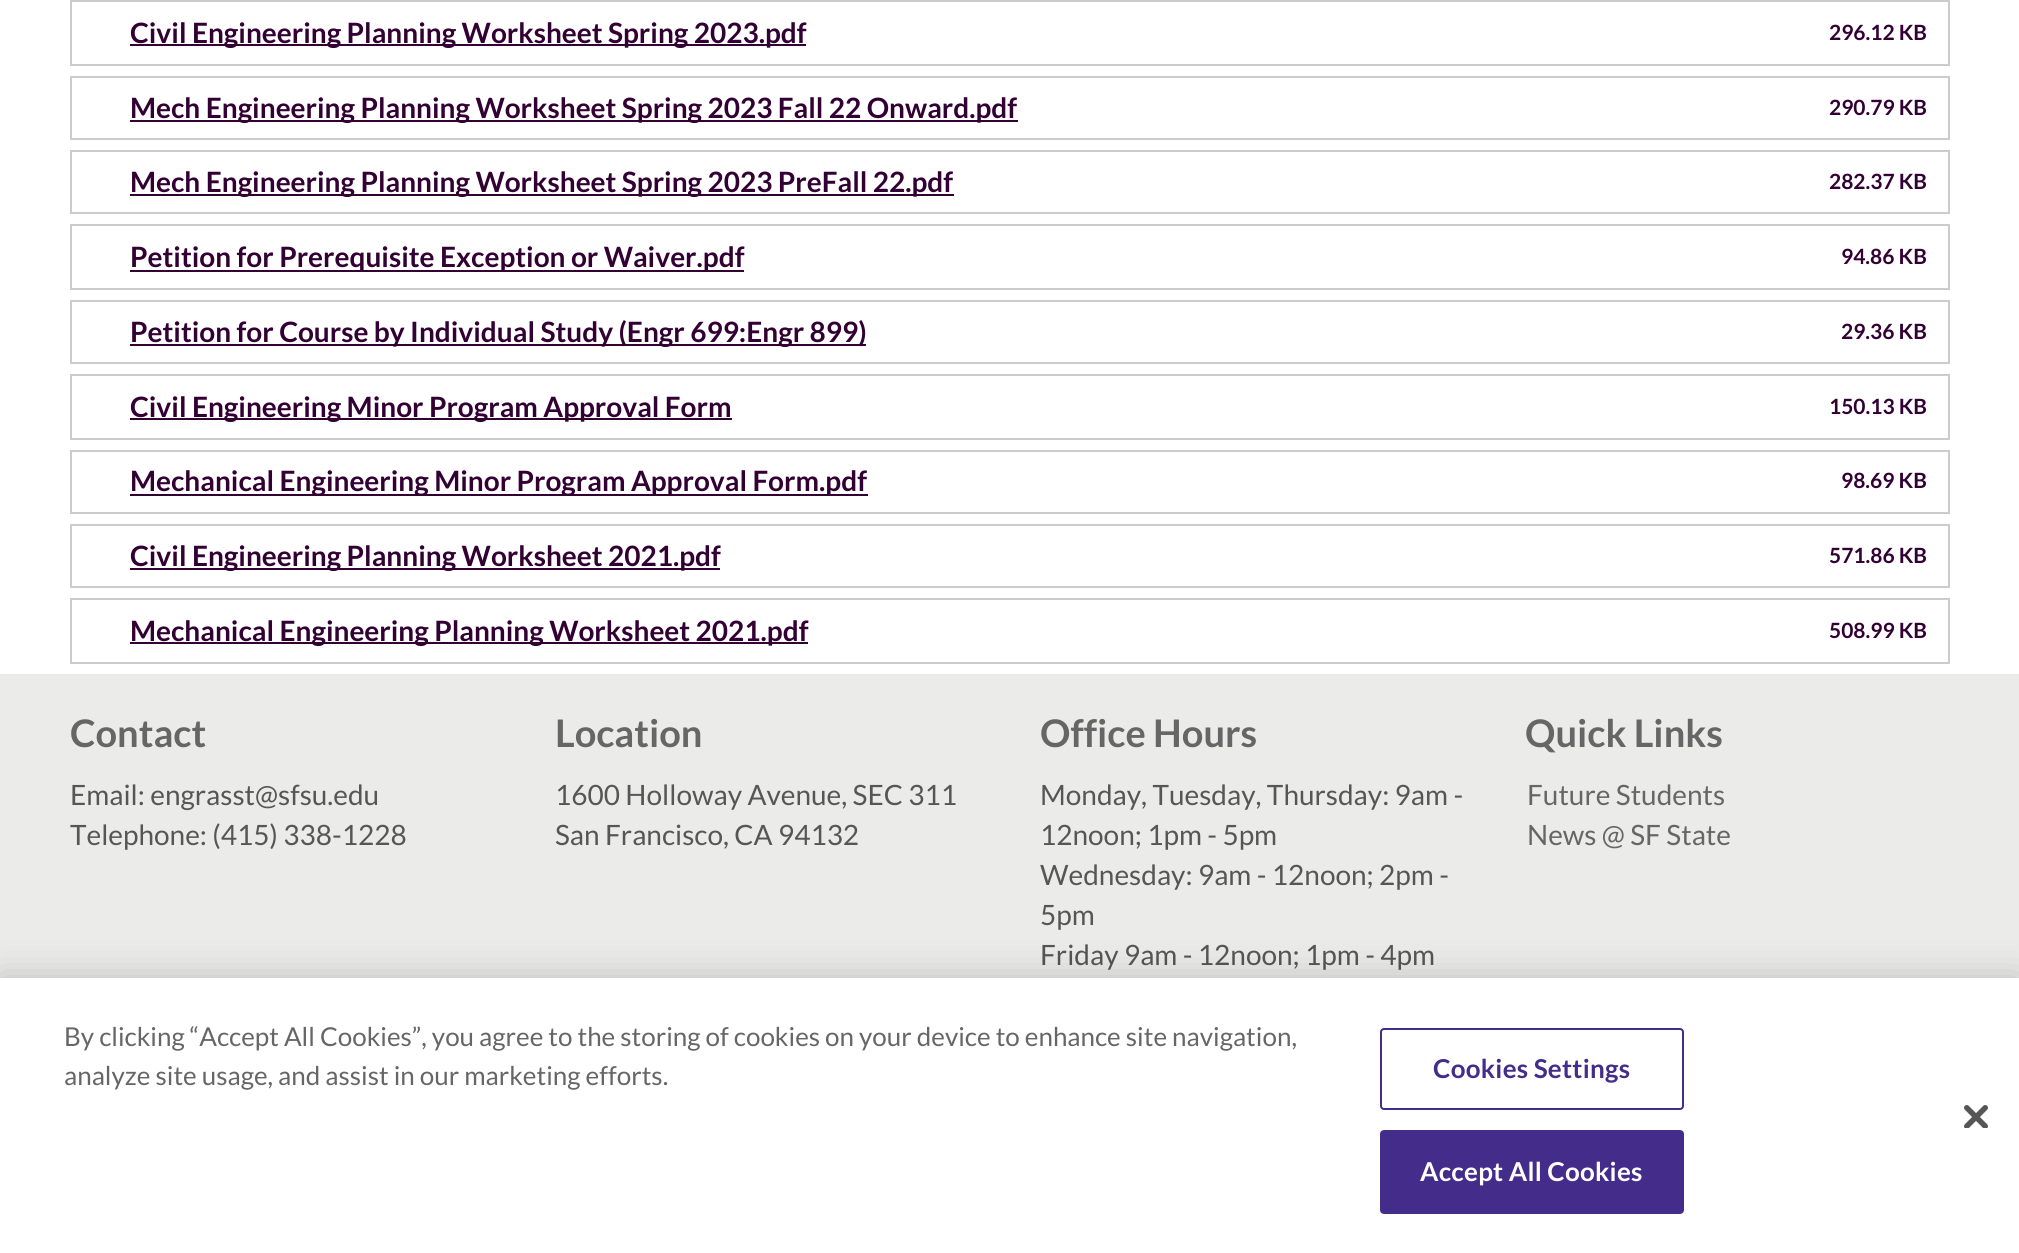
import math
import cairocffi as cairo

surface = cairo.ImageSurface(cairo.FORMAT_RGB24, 2019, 1253)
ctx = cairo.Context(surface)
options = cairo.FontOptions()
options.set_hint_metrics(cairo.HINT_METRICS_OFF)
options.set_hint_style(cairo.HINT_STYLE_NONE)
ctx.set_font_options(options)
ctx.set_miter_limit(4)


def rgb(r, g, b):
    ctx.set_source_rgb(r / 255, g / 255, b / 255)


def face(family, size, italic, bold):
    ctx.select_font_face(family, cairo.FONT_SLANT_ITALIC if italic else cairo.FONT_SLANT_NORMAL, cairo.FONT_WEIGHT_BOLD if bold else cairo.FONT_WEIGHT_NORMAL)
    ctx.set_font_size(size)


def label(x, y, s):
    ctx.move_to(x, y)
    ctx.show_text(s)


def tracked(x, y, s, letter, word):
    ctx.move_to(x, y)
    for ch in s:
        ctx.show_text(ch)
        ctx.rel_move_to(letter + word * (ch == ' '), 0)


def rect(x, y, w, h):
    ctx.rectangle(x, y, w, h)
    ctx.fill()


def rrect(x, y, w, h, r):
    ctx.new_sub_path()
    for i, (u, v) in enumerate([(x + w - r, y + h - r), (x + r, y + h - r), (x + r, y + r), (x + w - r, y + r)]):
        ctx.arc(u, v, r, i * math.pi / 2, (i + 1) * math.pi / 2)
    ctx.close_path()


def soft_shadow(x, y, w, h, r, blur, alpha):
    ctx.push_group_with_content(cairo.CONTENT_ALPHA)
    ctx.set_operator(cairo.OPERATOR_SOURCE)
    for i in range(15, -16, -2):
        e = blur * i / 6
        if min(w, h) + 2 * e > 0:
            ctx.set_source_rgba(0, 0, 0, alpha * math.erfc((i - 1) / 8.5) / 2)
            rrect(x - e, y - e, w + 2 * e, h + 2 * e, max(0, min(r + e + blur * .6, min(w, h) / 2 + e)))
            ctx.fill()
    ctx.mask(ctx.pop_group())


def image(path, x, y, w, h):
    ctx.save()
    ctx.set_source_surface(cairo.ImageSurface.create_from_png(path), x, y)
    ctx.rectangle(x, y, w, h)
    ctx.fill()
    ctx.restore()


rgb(255, 255, 255)
ctx.paint()
rgb(204, 204, 204)
rect(70, 0, 1880, 2)
rect(70, 64, 1738, 2)
rect(70, 0, 2, 66)
rgb(51, 0, 51)
rect(130, 44, 676, 2)
face('Lato', 28, 0, 1)
label(130, 43, 'Civil Engineering Planning Worksheet Spring 2023.pdf')
rgb(204, 204, 204)
rect(1948, 0, 2, 66)
rect(1808, 64, 142, 2)
face('Lato', 21, 0, 1)
rgb(51, 0, 51)
label(1829, 40, '296.12 KB')
rgb(204, 204, 204)
rect(70, 76, 1880, 2)
rect(70, 138, 1738, 2)
rect(70, 76, 2, 64)
rgb(51, 0, 51)
rect(130, 120, 888, 2)
face('Lato', 28, 0, 1)
label(130, 118, 'Mech Engineering Planning Worksheet Spring 2023 Fall 22 Onward.pdf')
rgb(204, 204, 204)
rect(1948, 76, 2, 64)
rect(1808, 138, 142, 2)
face('Lato', 21, 0, 1)
rgb(51, 0, 51)
label(1829, 115, '290.79 KB')
rgb(204, 204, 204)
rect(70, 150, 1880, 2)
rect(70, 212, 1738, 2)
rect(70, 150, 2, 64)
rgb(51, 0, 51)
rect(130, 194, 824, 2)
face('Lato', 28, 0, 1)
label(130, 192, 'Mech Engineering Planning Worksheet Spring 2023 PreFall 22.pdf')
rgb(204, 204, 204)
rect(1948, 150, 2, 64)
rect(1808, 212, 142, 2)
face('Lato', 21, 0, 1)
rgb(51, 0, 51)
label(1829, 189, '282.37 KB')
rgb(204, 204, 204)
rect(70, 224, 1880, 2)
rect(70, 288, 1750, 2)
rect(70, 224, 2, 66)
rgb(51, 0, 51)
rect(130, 270, 614, 2)
face('Lato', 28, 0, 1)
label(130, 267, 'Petition for Prerequisite Exception or Waiver.pdf')
rgb(204, 204, 204)
rect(1948, 224, 2, 66)
rect(1820, 288, 130, 2)
face('Lato', 21, 0, 1)
rgb(51, 0, 51)
label(1841, 264, '94.86 KB')
rgb(204, 204, 204)
rect(70, 300, 1880, 2)
rect(70, 362, 1750, 2)
rect(70, 300, 2, 64)
rgb(51, 0, 51)
rect(130, 344, 736, 2)
face('Lato', 28, 0, 1)
label(130, 342, 'Petition for Course by Individual Study (Engr 699:Engr 899)')
rgb(204, 204, 204)
rect(1948, 300, 2, 64)
rect(1820, 362, 130, 2)
face('Lato', 21, 0, 1)
rgb(51, 0, 51)
label(1841, 339, '29.36 KB')
rgb(204, 204, 204)
rect(70, 374, 1880, 2)
rect(70, 438, 1738, 2)
rect(70, 374, 2, 66)
rgb(51, 0, 51)
rect(130, 418, 602, 2)
face('Lato', 28, 0, 1)
label(130, 417, 'Civil Engineering Minor Program Approval Form')
rgb(204, 204, 204)
rect(1948, 374, 2, 66)
rect(1808, 438, 142, 2)
face('Lato', 21, 0, 1)
rgb(51, 0, 51)
label(1829, 414, '150.13 KB')
rgb(204, 204, 204)
rect(70, 450, 1880, 2)
rect(70, 512, 1750, 2)
rect(70, 450, 2, 64)
rgb(51, 0, 51)
rect(130, 494, 738, 2)
face('Lato', 28, 0, 1)
label(130, 491, 'Mechanical Engineering Minor Program Approval Form.pdf')
rgb(204, 204, 204)
rect(1948, 450, 2, 64)
rect(1820, 512, 130, 2)
face('Lato', 21, 0, 1)
rgb(51, 0, 51)
label(1841, 488, '98.69 KB')
rgb(204, 204, 204)
rect(70, 524, 1880, 2)
rect(70, 586, 1738, 2)
rect(70, 524, 2, 64)
rgb(51, 0, 51)
rect(130, 568, 590, 2)
face('Lato', 28, 0, 1)
label(130, 566, 'Civil Engineering Planning Worksheet 2021.pdf')
rgb(204, 204, 204)
rect(1948, 524, 2, 64)
rect(1808, 586, 142, 2)
face('Lato', 21, 0, 1)
rgb(51, 0, 51)
label(1829, 563, '571.86 KB')
rgb(204, 204, 204)
rect(70, 598, 1880, 2)
rect(70, 662, 1738, 2)
rect(70, 598, 2, 66)
rgb(51, 0, 51)
rect(130, 642, 678, 2)
face('Lato', 28, 0, 1)
label(130, 641, 'Mechanical Engineering Planning Worksheet 2021.pdf')
rgb(204, 204, 204)
rect(1948, 598, 2, 66)
rect(1808, 662, 142, 2)
face('Lato', 21, 0, 1)
rgb(51, 0, 51)
label(1829, 638, '508.99 KB')
rgb(235, 235, 234)
rect(0, 674, 2019, 304)
face('Lato', 38, 0, 1)
rgb(102, 102, 102)
label(70, 747, 'Contact')
face('Lato', 28, 0, 0)
rgb(86, 86, 86)
label(70, 805, 'Email: engrasst@sfsu.edu')
label(70, 845, 'Telephone: (415) 338-1228')
face('Lato', 38, 0, 1)
rgb(102, 102, 102)
label(555, 747, 'Location')
face('Lato', 28, 0, 0)
rgb(86, 86, 86)
label(555, 805, '1600 Holloway Avenue, SEC 311')
label(555, 845, 'San Francisco, CA 94132')
face('Lato', 38, 0, 1)
rgb(102, 102, 102)
label(1040, 747, 'Office Hours')
face('Lato', 28, 0, 0)
rgb(86, 86, 86)
label(1040, 805, 'Monday, Tuesday, Thursday: 9am -')
label(1040, 845, '12noon; 1pm - 5pm')
label(1040, 885, 'Wednesday: 9am - 12noon; 2pm -')
label(1040, 925, '5pm')
label(1040, 965, 'Friday 9am - 12noon; 1pm - 4pm')
face('Lato', 38, 0, 1)
rgb(102, 102, 102)
label(1525, 747, 'Quick Links')
face('Lato', 28, 0, 0)
label(1527, 805, 'Future Students')
label(1527, 845, 'News @ SF State')
rgb(0, 0, 0)
soft_shadow(0, 978, 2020, 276, 0, 18, 0.2)
rgb(255, 255, 255)
rect(0, 978, 2019, 275)
face('Lato', 26, 0, 0)
rgb(102, 102, 102)
label(64, 1046, 'By clicking “Accept All Cookies”, you agree to the storing of cookies on your device to enhance site navigation,')
label(64, 1085, 'analyze site usage, and assist in our marketing efforts.')
rrect(1381, 1029, 302, 80, 3)
rgb(68, 44, 139)
ctx.stroke()
face('Lato', 26, 0, 1)
tracked(1433, 1078, 'Cookies Settings', 0.25, 0)
rrect(1381, 1131, 302, 82, 3)
ctx.fill_preserve()
ctx.stroke()
rgb(255, 255, 255)
tracked(1420, 1181, 'Accept All Cookies', 0.25, 0)
image('image0.png', 1964, 1105, 24, 23)
surface.write_to_png('render.png')
